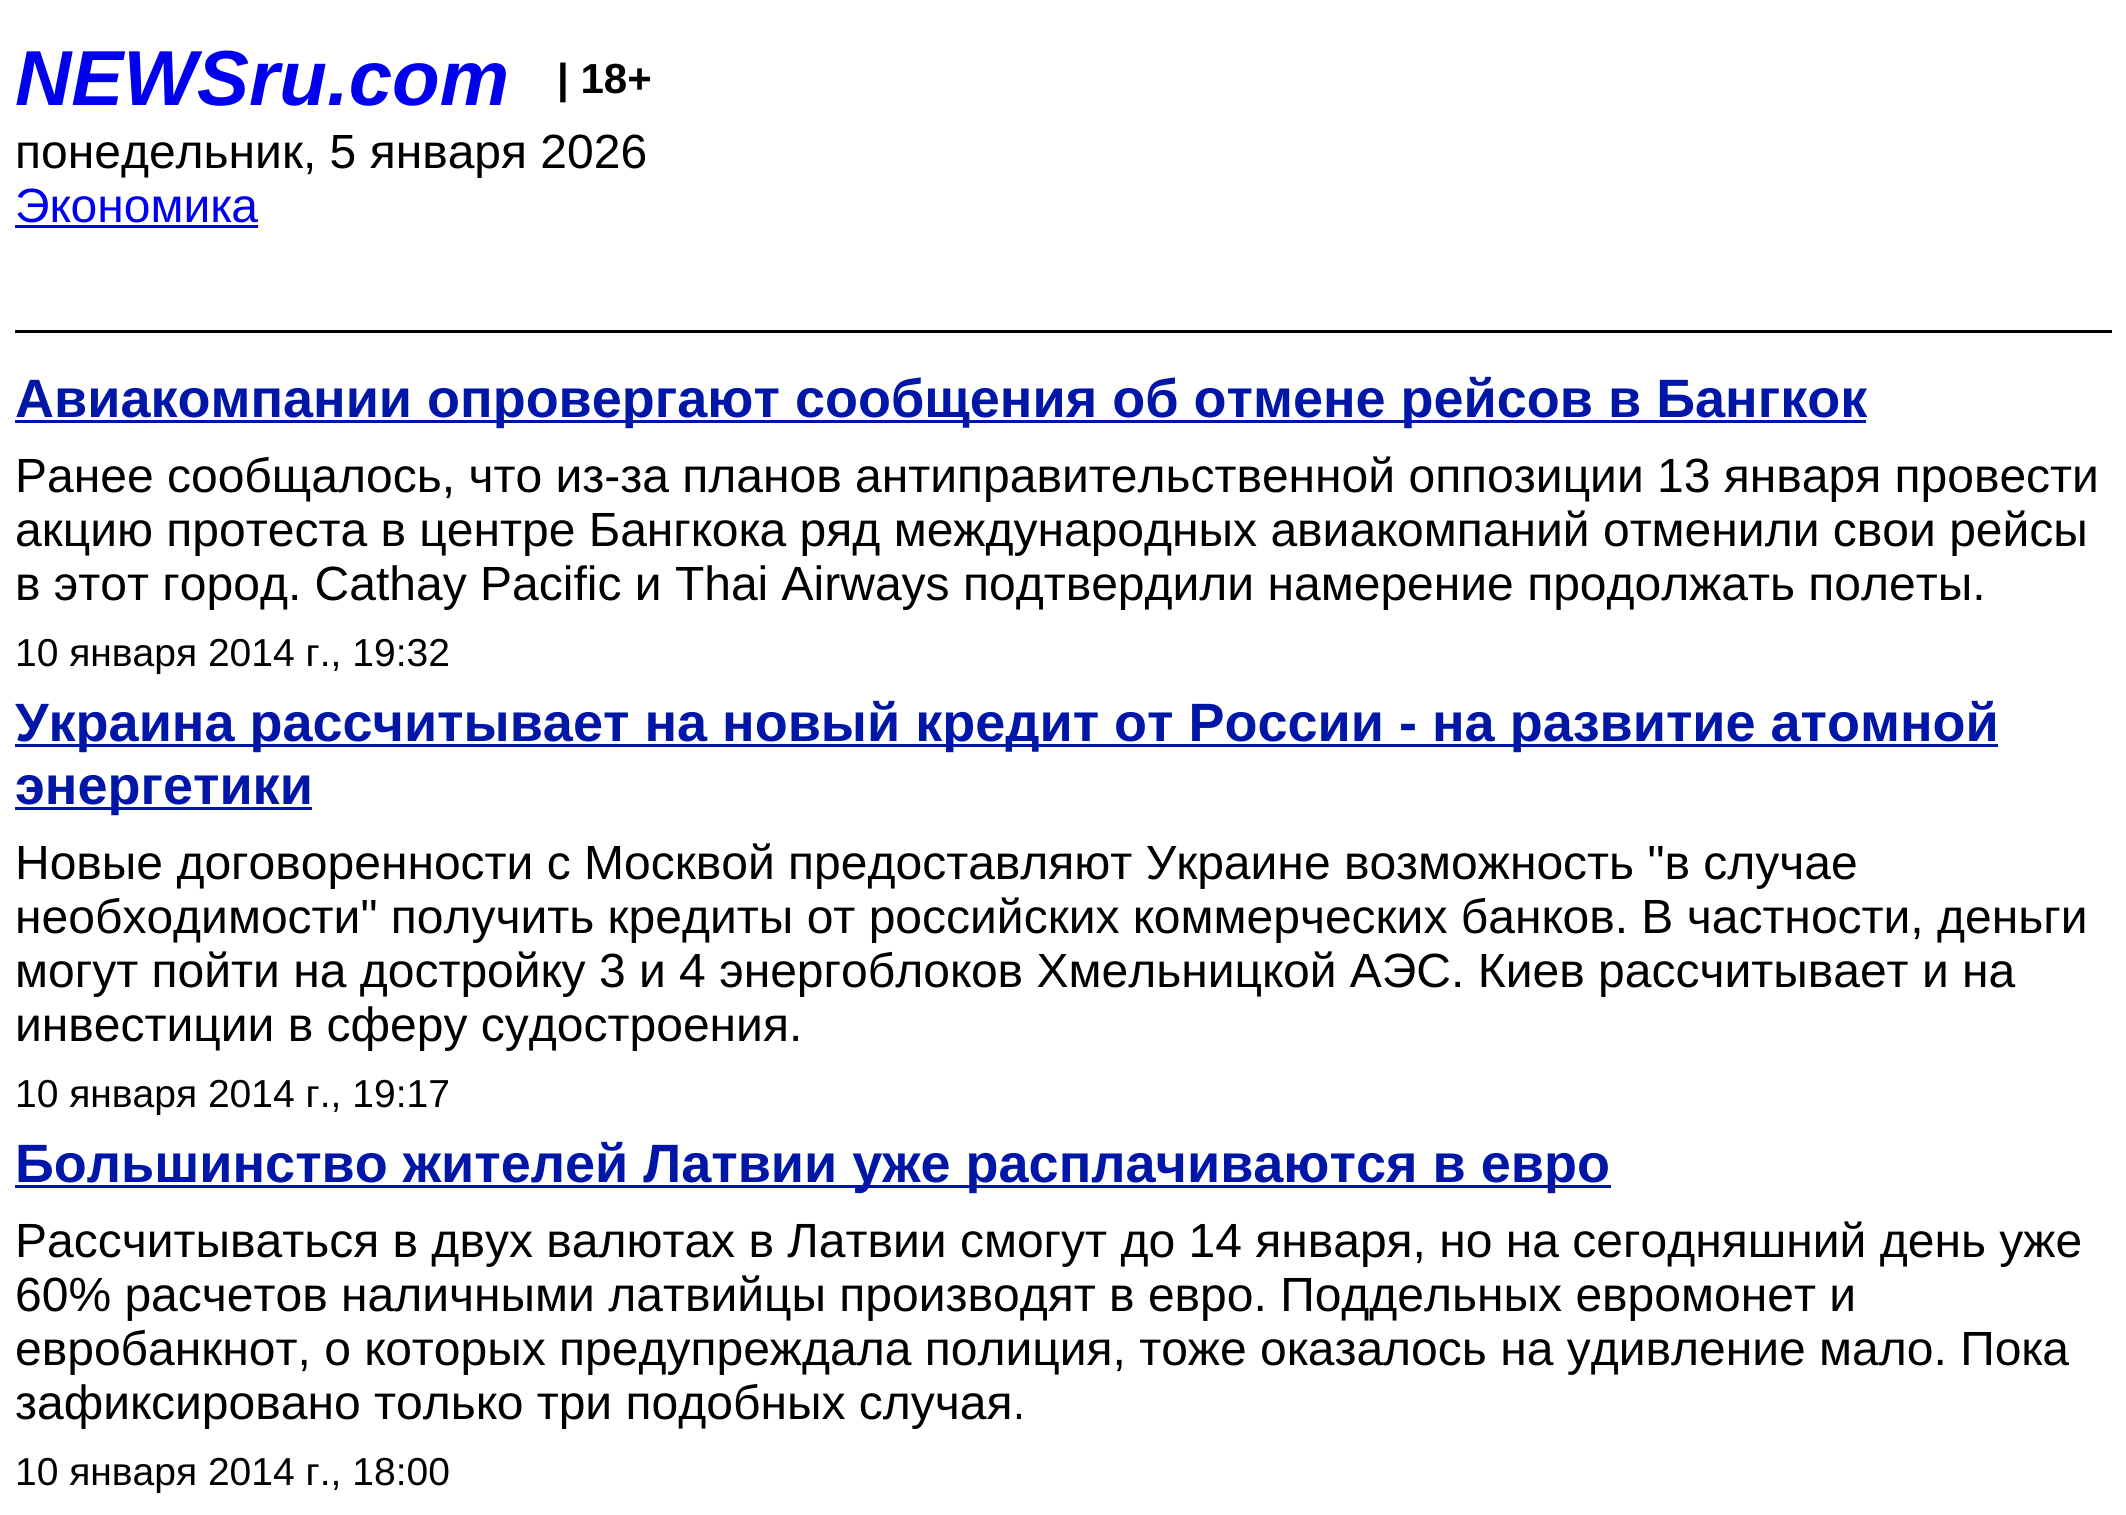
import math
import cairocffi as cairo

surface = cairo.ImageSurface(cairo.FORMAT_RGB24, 2126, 1515)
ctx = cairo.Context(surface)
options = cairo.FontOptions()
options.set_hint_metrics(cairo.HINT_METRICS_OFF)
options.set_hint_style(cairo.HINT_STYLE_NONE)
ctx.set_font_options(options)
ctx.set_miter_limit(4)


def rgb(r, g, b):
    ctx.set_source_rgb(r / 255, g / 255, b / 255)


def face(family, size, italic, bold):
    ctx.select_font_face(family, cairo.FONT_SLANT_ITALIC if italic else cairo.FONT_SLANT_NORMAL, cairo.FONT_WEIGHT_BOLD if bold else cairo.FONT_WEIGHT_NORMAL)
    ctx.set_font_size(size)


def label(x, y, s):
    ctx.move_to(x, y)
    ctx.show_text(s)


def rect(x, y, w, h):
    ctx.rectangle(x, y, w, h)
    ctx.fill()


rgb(255, 255, 255)
ctx.paint()
rgb(0, 0, 0)
rect(15, 330, 2097, 3)
face('Liberation Sans', 78, 1, 1)
rgb(0, 0, 238)
label(15, 105, 'NEWSru.com')
face('Liberation Sans', 42, 0, 1)
rgb(0, 0, 0)
label(557, 93, '| 18+')
face('Liberation Sans', 48, 0, 0)
label(15, 168, 'понедельник, 5 января 2026')
rgb(0, 0, 238)
label(15, 222, 'Экономика')
rect(15, 225, 243, 3)
rgb(0, 22, 166)
rect(15, 420, 1851, 3)
face('Liberation Sans', 54, 0, 1)
label(15, 417, 'Авиакомпании опровергают сообщения об отмене рейсов в Бангкок')
face('Liberation Sans', 48, 0, 0)
rgb(0, 0, 0)
label(15, 492, 'Ранее сообщалось, что из-за планов антиправительственной оппозиции 13 января провести')
label(15, 546, 'акцию протеста в центре Бангкока ряд международных авиакомпаний отменили свои рейсы')
label(15, 600, 'в этот город. Cathay Pacific и Thai Airways подтвердили намерение продолжать полеты.')
face('Liberation Sans', 39, 0, 0)
label(15, 666, '10 января 2014 г., 19:32')
rgb(0, 22, 166)
rect(15, 744, 1983, 3)
face('Liberation Sans', 54, 0, 1)
label(15, 741, 'Украина рассчитывает на новый кредит от России - на развитие атомной')
rect(15, 807, 297, 3)
label(15, 804, 'энергетики')
face('Liberation Sans', 48, 0, 0)
rgb(0, 0, 0)
label(15, 879, 'Новые договоренности с Москвой предоставляют Украине возможность "в случае')
label(15, 933, 'необходимости" получить кредиты от российских коммерческих банков. В частности, деньги')
label(15, 987, 'могут пойти на достройку 3 и 4 энергоблоков Хмельницкой АЭС. Киев рассчитывает и на')
label(15, 1041, 'инвестиции в сферу судостроения.')
face('Liberation Sans', 39, 0, 0)
label(15, 1107, '10 января 2014 г., 19:17')
rgb(0, 22, 166)
rect(15, 1185, 1596, 3)
face('Liberation Sans', 54, 0, 1)
label(15, 1182, 'Большинство жителей Латвии уже расплачиваются в евро')
face('Liberation Sans', 48, 0, 0)
rgb(0, 0, 0)
label(15, 1257, 'Рассчитываться в двух валютах в Латвии смогут до 14 января, но на сегодняшний день уже')
label(15, 1311, '60% расчетов наличными латвийцы производят в евро. Поддельных евромонет и')
label(15, 1365, 'евробанкнот, о которых предупреждала полиция, тоже оказалось на удивление мало. Пока')
label(15, 1419, 'зафиксировано только три подобных случая.')
face('Liberation Sans', 39, 0, 0)
label(15, 1485, '10 января 2014 г., 18:00')
surface.write_to_png('render.png')
